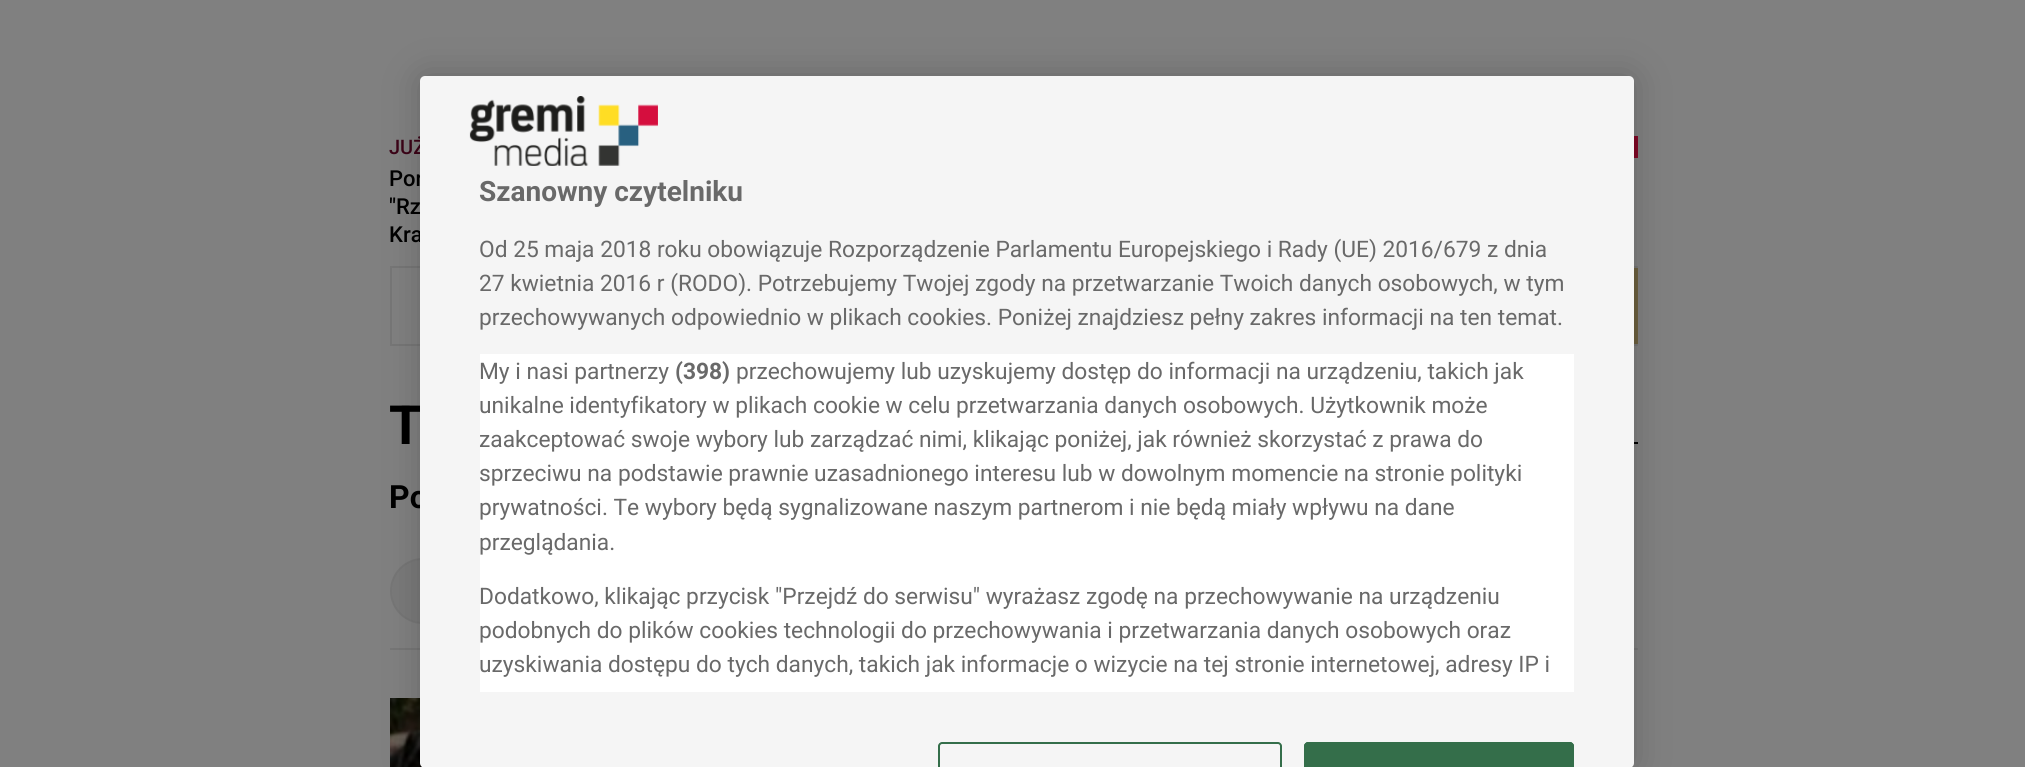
import math
import cairocffi as cairo

surface = cairo.ImageSurface(cairo.FORMAT_RGB24, 2025, 767)
ctx = cairo.Context(surface)
options = cairo.FontOptions()
options.set_hint_metrics(cairo.HINT_METRICS_OFF)
options.set_hint_style(cairo.HINT_STYLE_NONE)
ctx.set_font_options(options)
ctx.set_miter_limit(4)


def rgb(r, g, b):
    ctx.set_source_rgb(r / 255, g / 255, b / 255)


def face(family, size, italic, bold):
    ctx.select_font_face(family, cairo.FONT_SLANT_ITALIC if italic else cairo.FONT_SLANT_NORMAL, cairo.FONT_WEIGHT_BOLD if bold else cairo.FONT_WEIGHT_NORMAL)
    ctx.set_font_size(size)


def label(x, y, s):
    ctx.move_to(x, y)
    ctx.show_text(s)


def tracked(x, y, s, letter, word):
    ctx.move_to(x, y)
    for ch in s:
        ctx.show_text(ch)
        ctx.rel_move_to(letter + word * (ch == ' '), 0)


def rect(x, y, w, h):
    ctx.rectangle(x, y, w, h)
    ctx.fill()


def rrect(x, y, w, h, r):
    ctx.new_sub_path()
    for i, (u, v) in enumerate([(x + w - r, y + h - r), (x + r, y + h - r), (x + r, y + r), (x + w - r, y + r)]):
        ctx.arc(u, v, r, i * math.pi / 2, (i + 1) * math.pi / 2)
    ctx.close_path()


def soft_shadow(x, y, w, h, r, blur, alpha):
    ctx.push_group_with_content(cairo.CONTENT_ALPHA)
    ctx.set_operator(cairo.OPERATOR_SOURCE)
    for i in range(15, -16, -2):
        e = blur * i / 6
        if min(w, h) + 2 * e > 0:
            ctx.set_source_rgba(0, 0, 0, alpha * math.erfc((i - 1) / 8.5) / 2)
            rrect(x - e, y - e, w + 2 * e, h + 2 * e, max(0, min(r + e + blur * .6, min(w, h) / 2 + e)))
            ctx.fill()
    ctx.mask(ctx.pop_group())


def image(path, x, y, w, h):
    ctx.save()
    ctx.set_source_surface(cairo.ImageSurface.create_from_png(path), x, y)
    ctx.rectangle(x, y, w, h)
    ctx.fill()
    ctx.restore()


rgb(128, 128, 128)
ctx.paint()
face('Roboto Medium', 20, 0, 0)
rgb(59, 3, 23)
label(389, 154, 'JUŻ')
face('Roboto Medium', 22, 0, 0)
rgb(0, 0, 0)
label(389, 186, 'Por')
label(389, 214, '"Rz')
label(389, 242, 'Kra')
rgb(128, 7, 37)
rect(1634, 136, 4, 22)
rgb(118, 118, 118)
rect(390, 266, 1248, 2)
rect(390, 344, 1248, 2)
rect(390, 268, 2, 76)
rgb(108, 95, 62)
rect(1634, 268, 4, 76)
rgb(0, 0, 0)
rect(1634, 442, 4, 2)
rgb(122, 122, 122)
rrect(391, 559, 176, 64, 32)
ctx.fill_preserve()
rgb(118, 118, 118)
ctx.stroke()
rect(390, 648, 1248, 2)
image('image1.png', 390, 698, 32, 69)
rgb(0, 0, 0)
soft_shadow(420, 76, 1214, 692, 5, 18, 0.2)
face('Roboto', 54, 0, 1)
rgb(0, 0, 0)
tracked(389, 444, 'T', -1, 0)
face('Roboto', 32, 0, 1)
label(389, 508, 'Po')
rgb(245, 245, 245)
rrect(420, 76, 1214, 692, 5)
ctx.fill()
image('image0.png', 469, 96, 189, 70)
face('Roboto', 28, 0, 1)
rgb(105, 105, 105)
label(479, 201, 'Szanowny czytelniku')
face('Roboto', 22.75, 0, 0)
label(479, 257, 'Od 25 maja 2018 roku obowiązuje Rozporządzenie Parlamentu Europejskiego i Rady (UE) 2016/679 z dnia')
label(479, 291, '27 kwietnia 2016 r (RODO). Potrzebujemy Twojej zgody na przetwarzanie Twoich danych osobowych, w tym')
label(479, 325, 'przechowywanych odpowiednio w plikach cookies. Poniżej znajdziesz pełny zakres informacji na ten temat.')
rgb(255, 255, 255)
rect(480, 354, 1094, 338)
rgb(105, 105, 105)
label(479, 379, 'My i nasi partnerzy')
face('Roboto', 22.75, 0, 1)
label(675, 379, '(398)')
face('Roboto', 22.75, 0, 0)
label(736, 379, 'przechowujemy lub uzyskujemy dostęp do informacji na urządzeniu, takich jak')
label(479, 413, 'unikalne identyfikatory w plikach cookie w celu przetwarzania danych osobowych. Użytkownik może')
label(479, 447, 'zaakceptować swoje wybory lub zarządzać nimi, klikając poniżej, jak również skorzystać z prawa do')
label(479, 481, 'sprzeciwu na podstawie prawnie uzasadnionego interesu lub w dowolnym momencie na stronie polityki')
label(479, 515, 'prywatności. Te wybory będą sygnalizowane naszym partnerom i nie będą miały wpływu na dane')
label(479, 550, 'przeglądania.')
label(479, 604, 'Dodatkowo, klikając przycisk "Przejdź do serwisu" wyrażasz zgodę na przechowywanie na urządzeniu')
label(479, 638, 'podobnych do plików cookies technologii do przechowywania i przetwarzania danych osobowych oraz')
label(479, 672, 'uzyskiwania dostępu do tych danych, takich jak informacje o wizycie na tej stronie internetowej, adresy IP i')
rgb(52, 110, 74)
ctx.new_path()
ctx.move_to(942, 742)
ctx.curve_to(940, 742, 938, 744, 938, 746)
ctx.line_to(938, 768)
ctx.line_to(940, 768)
ctx.line_to(940, 746)
ctx.curve_to(940, 745, 941, 744, 942, 744)
ctx.line_to(1278, 744)
ctx.curve_to(1279, 744, 1280, 745, 1280, 746)
ctx.line_to(1280, 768)
ctx.line_to(1282, 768)
ctx.line_to(1282, 746)
ctx.curve_to(1282, 744, 1280, 742, 1278, 742)
ctx.close_path()
ctx.fill()
ctx.new_path()
ctx.move_to(1308, 742)
ctx.line_to(1570, 742)
ctx.curve_to(1572, 742, 1574, 744, 1574, 746)
ctx.line_to(1574, 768)
ctx.line_to(1304, 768)
ctx.line_to(1304, 746)
ctx.curve_to(1304, 744, 1306, 742, 1308, 742)
ctx.close_path()
ctx.fill()
ctx.new_path()
ctx.move_to(1308, 742)
ctx.curve_to(1306, 742, 1304, 744, 1304, 746)
ctx.line_to(1304, 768)
ctx.line_to(1306, 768)
ctx.line_to(1306, 746)
ctx.curve_to(1306, 745, 1307, 744, 1308, 744)
ctx.line_to(1570, 744)
ctx.curve_to(1571, 744, 1572, 745, 1572, 746)
ctx.line_to(1572, 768)
ctx.line_to(1574, 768)
ctx.line_to(1574, 746)
ctx.curve_to(1574, 744, 1572, 742, 1570, 742)
ctx.close_path()
ctx.fill()
surface.write_to_png('render.png')
